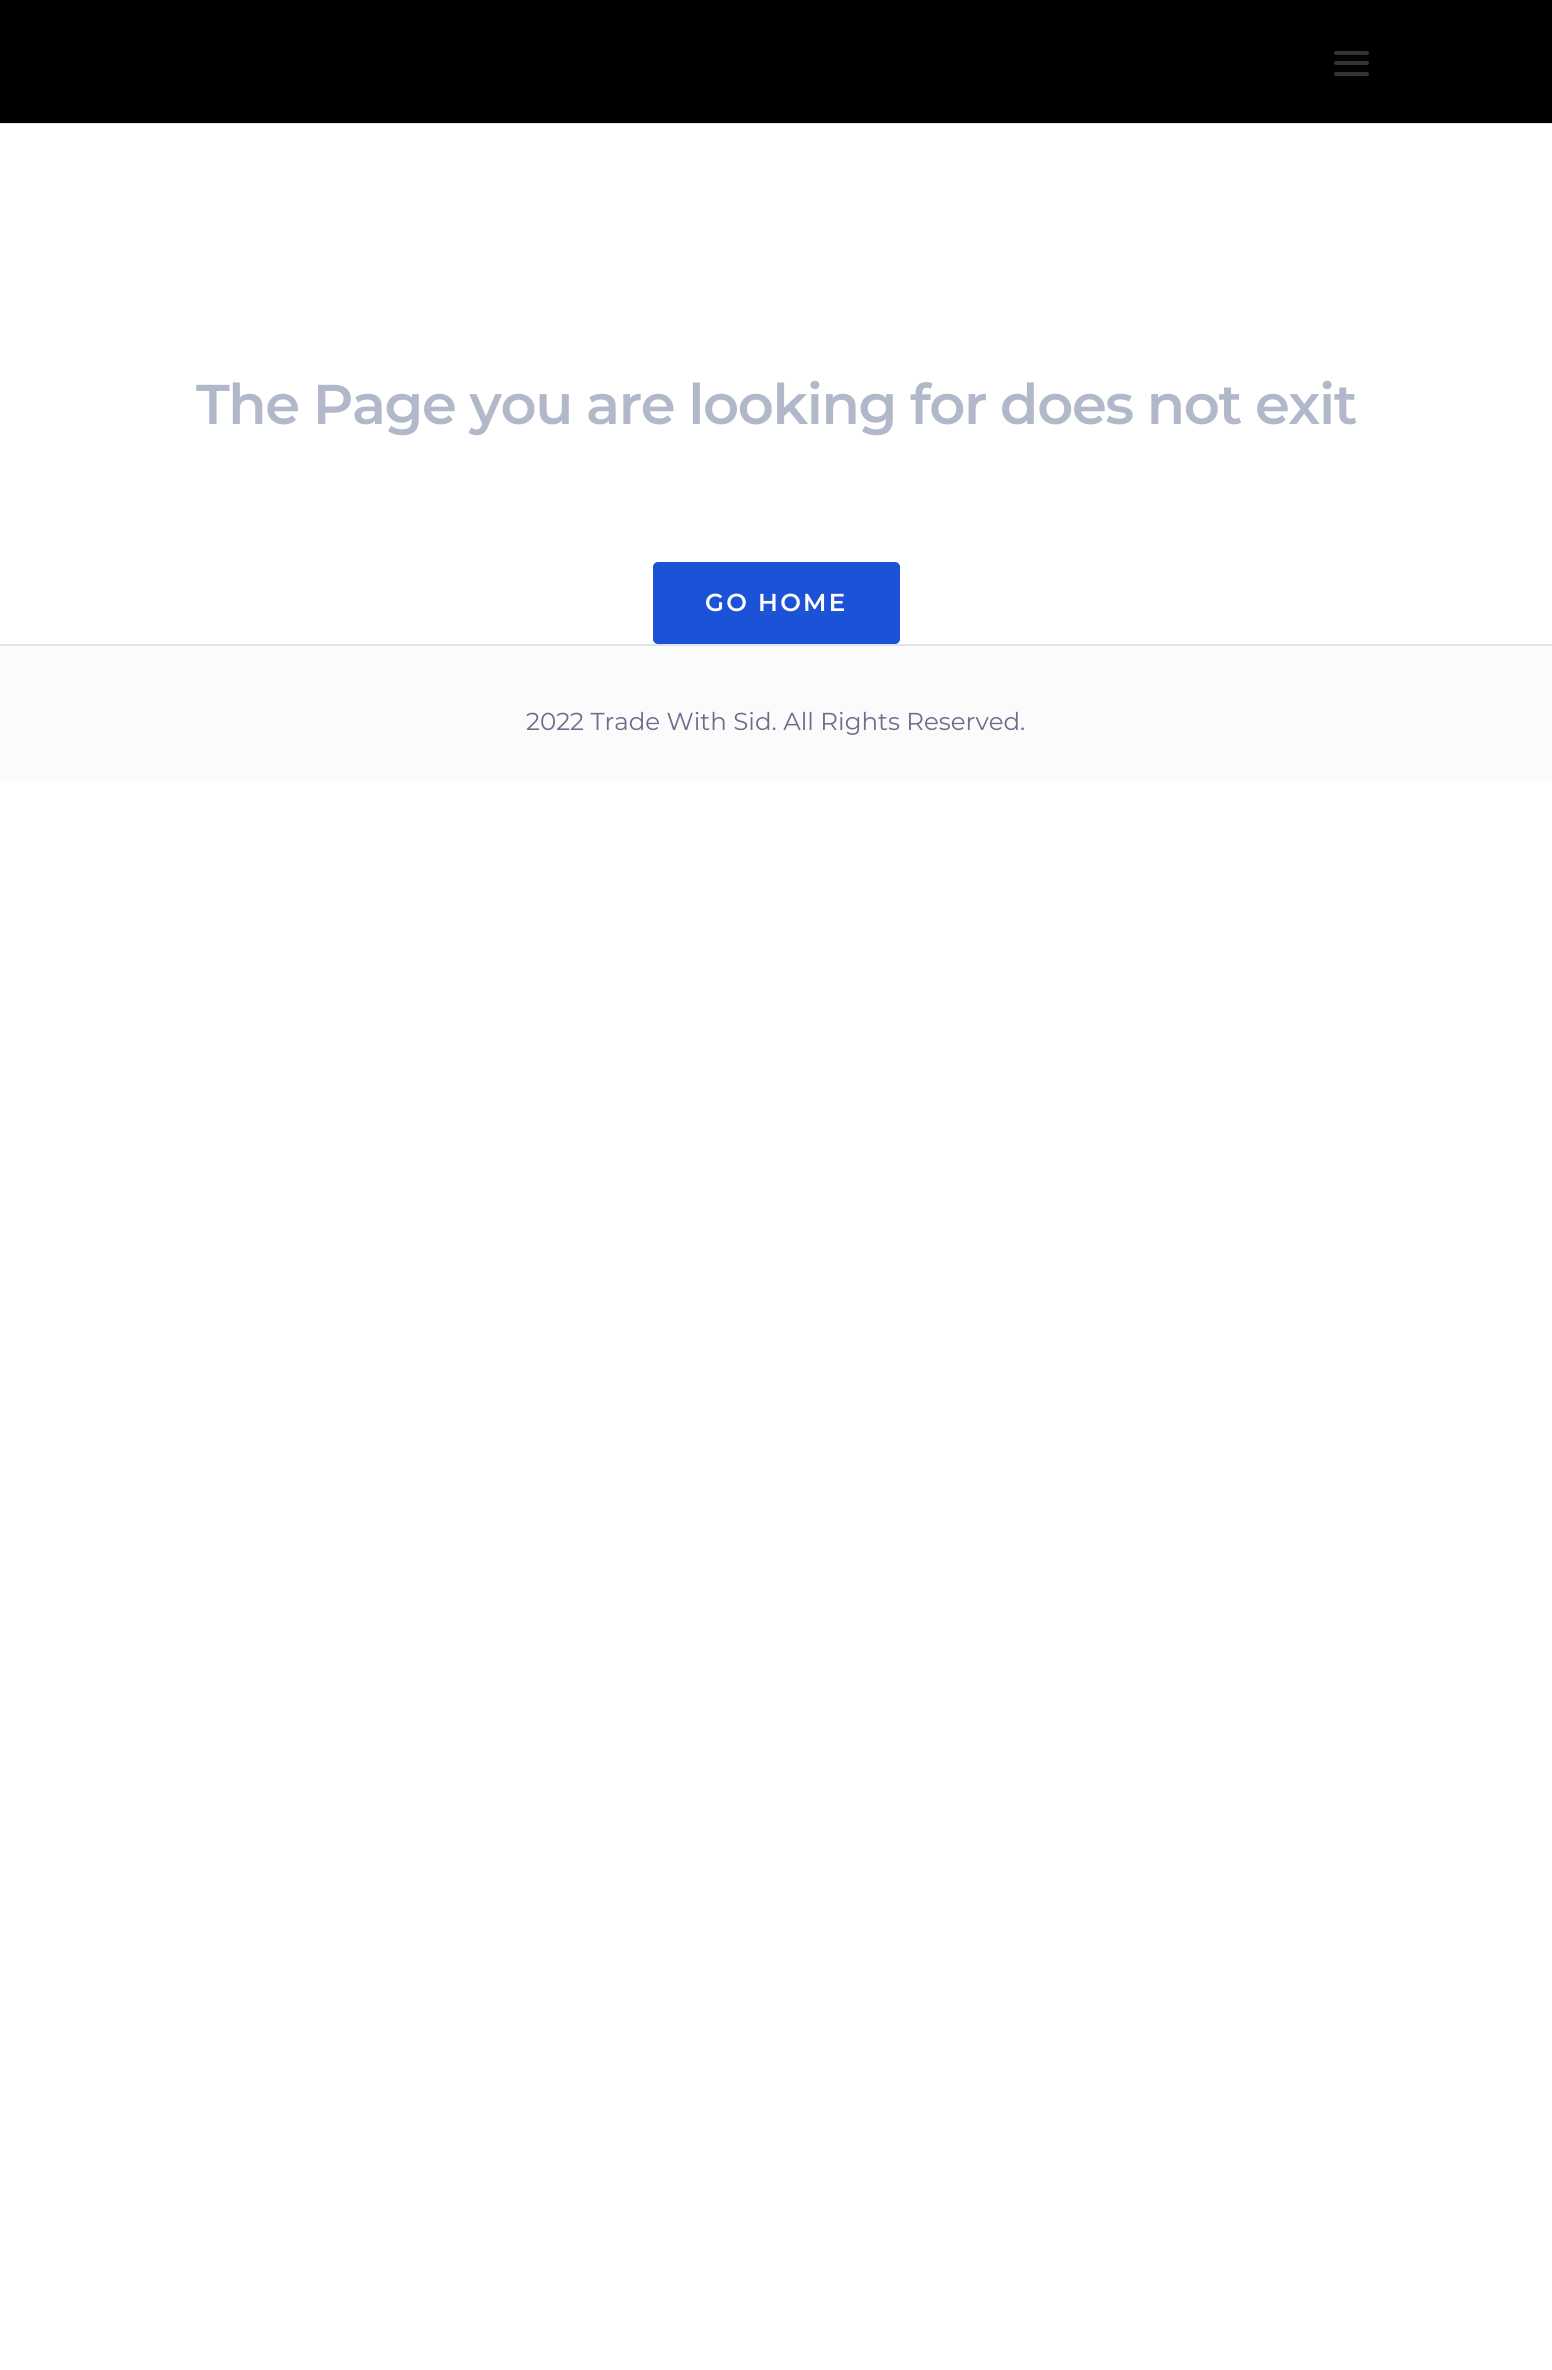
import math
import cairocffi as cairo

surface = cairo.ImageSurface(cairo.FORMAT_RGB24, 1552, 2370)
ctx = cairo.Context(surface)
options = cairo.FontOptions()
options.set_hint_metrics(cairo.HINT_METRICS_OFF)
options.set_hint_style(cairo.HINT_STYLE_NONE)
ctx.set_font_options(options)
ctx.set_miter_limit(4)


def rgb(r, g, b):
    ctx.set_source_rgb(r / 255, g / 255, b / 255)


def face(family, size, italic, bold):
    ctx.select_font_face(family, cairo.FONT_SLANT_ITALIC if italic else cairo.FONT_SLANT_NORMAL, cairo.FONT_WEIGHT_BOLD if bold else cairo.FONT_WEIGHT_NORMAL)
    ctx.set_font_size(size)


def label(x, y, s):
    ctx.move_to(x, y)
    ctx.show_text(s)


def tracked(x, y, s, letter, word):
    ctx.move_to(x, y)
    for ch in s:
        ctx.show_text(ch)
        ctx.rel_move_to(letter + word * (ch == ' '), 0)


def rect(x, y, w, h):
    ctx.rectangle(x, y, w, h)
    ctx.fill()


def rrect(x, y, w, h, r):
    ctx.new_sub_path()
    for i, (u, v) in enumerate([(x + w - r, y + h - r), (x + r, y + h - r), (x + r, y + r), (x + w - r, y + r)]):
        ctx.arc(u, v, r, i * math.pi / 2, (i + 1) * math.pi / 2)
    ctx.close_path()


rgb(255, 255, 255)
ctx.paint()
rgb(0, 0, 0)
rect(0, 0, 1552, 123)
rgb(223, 226, 233)
rect(0, 123, 1552, 1)
rgb(51, 51, 51)
rrect(1334, 61, 35, 4, 2)
ctx.fill()
rrect(1334, 51, 35, 4, 2)
ctx.fill()
rrect(1334, 72, 35, 4, 2)
ctx.fill()
face('Montserrat SemiBold', 56, 0, 0)
rgb(177, 184, 201)
tracked(196, 424, 'The Page you are looking for does not exit', -1.4, 0)
rgb(27, 82, 216)
rrect(653, 562, 247, 82, 5)
ctx.fill()
face('Montserrat SemiBold', 24.5, 0, 0)
rgb(255, 255, 255)
tracked(705, 611, 'GO HOME', 2.25, 0)
rgb(251, 251, 252)
rect(0, 646, 1552, 135)
rgb(224, 227, 238)
rect(0, 644, 1552, 2)
face('Montserrat', 24.5, 0, 0)
rgb(108, 109, 139)
label(526, 730, '2022 Trade With Sid. All Rights Reserved.')
surface.write_to_png('render.png')
